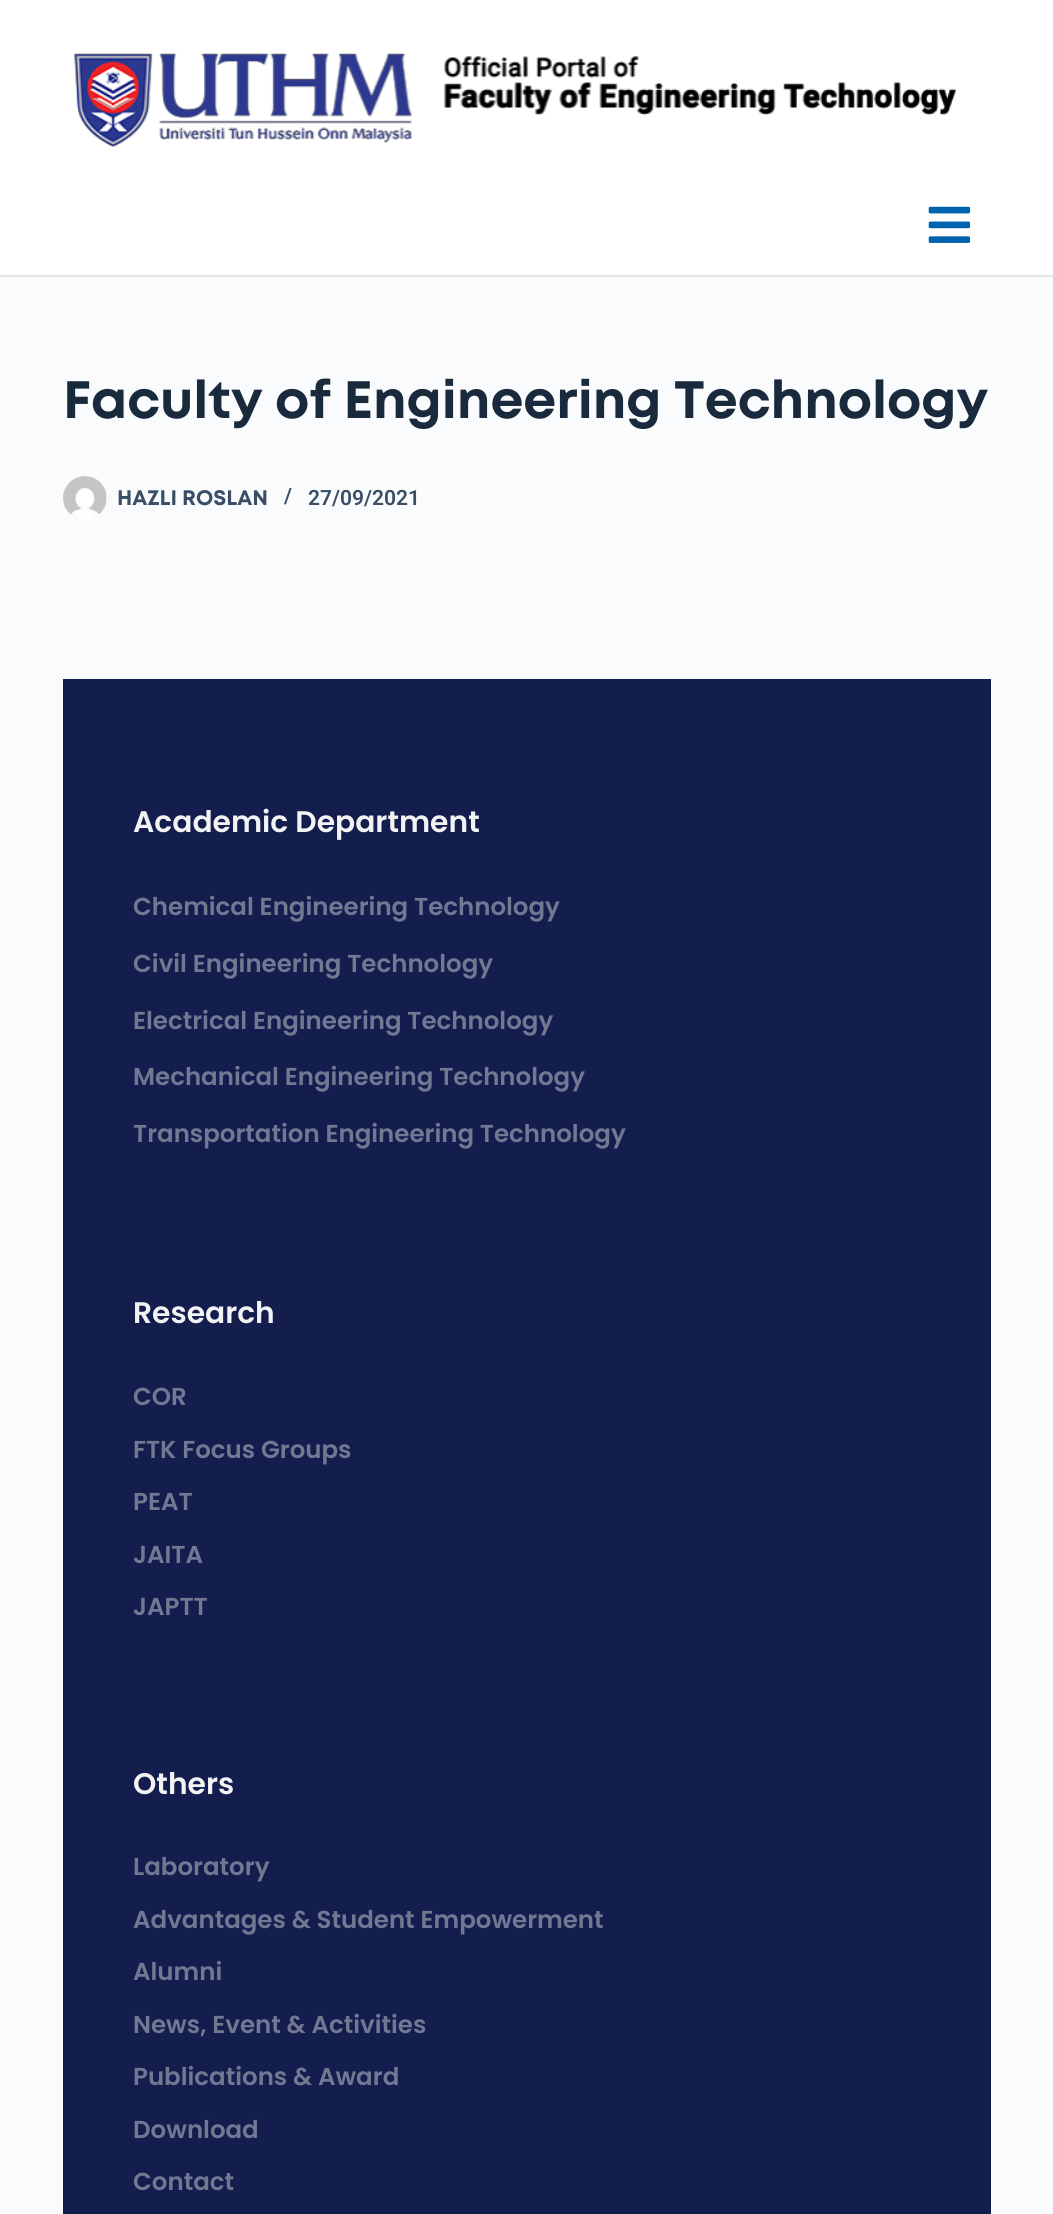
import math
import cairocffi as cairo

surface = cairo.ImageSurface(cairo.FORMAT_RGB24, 1053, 2214)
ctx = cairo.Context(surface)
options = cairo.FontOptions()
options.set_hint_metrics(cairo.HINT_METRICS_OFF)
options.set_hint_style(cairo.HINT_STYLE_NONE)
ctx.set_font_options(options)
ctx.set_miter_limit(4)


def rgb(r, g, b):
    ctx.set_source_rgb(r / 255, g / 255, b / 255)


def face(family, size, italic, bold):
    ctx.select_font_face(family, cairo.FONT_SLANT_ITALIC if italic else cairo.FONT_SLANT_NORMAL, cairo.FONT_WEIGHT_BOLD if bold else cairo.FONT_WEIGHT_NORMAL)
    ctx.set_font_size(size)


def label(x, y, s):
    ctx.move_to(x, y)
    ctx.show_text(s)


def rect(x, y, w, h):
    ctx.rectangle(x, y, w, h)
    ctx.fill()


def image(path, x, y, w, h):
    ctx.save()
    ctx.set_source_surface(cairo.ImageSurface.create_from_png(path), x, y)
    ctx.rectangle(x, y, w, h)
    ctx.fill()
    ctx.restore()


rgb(250, 251, 252)
ctx.paint()
rgb(255, 255, 255)
rect(0, 0, 1053, 275)
rgb(230, 230, 230)
rect(0, 275, 1053, 2)
image('image0.png', 74, 53, 882, 94)
image('image1.png', 928, 206, 43, 37)
face('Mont', 52.5, 0, 1)
rgb(25, 42, 61)
label(63, 418, 'Faculty of Engineering Technology')
image('image2.png', 63, 476, 44, 43)
face('Mont', 21, 0, 1)
rgb(58, 79, 102)
label(117, 505, 'HAZLI ROSLAN')
face('Roboto SemiBold', 21, 0, 0)
label(284, 503, '/')
label(308, 505, '27/09/2021')
rgb(19, 29, 78)
rect(63, 679, 928, 1535)
face('Poppins SemiBold', 29.75, 0, 0)
rgb(243, 243, 243)
label(133, 832, 'Academic Department')
face('Poppins SemiBold', 24.5, 0, 0)
rgb(115, 120, 146)
label(133, 915, 'Chemical Engineering Technology')
label(133, 972, 'Civil Engineering Technology')
label(133, 1029, 'Electrical Engineering Technology')
label(133, 1085, 'Mechanical Engineering Technology')
label(133, 1142, 'Transportation Engineering Technology')
face('Poppins SemiBold', 29.75, 0, 0)
rgb(243, 243, 243)
label(133, 1323, 'Research')
face('Poppins SemiBold', 24.5, 0, 0)
rgb(115, 120, 146)
label(133, 1405, 'COR')
label(133, 1458, 'FTK Focus Groups')
label(133, 1510, 'PEAT')
label(133, 1563, 'JAITA')
label(133, 1615, 'JAPTT')
face('Poppins SemiBold', 29.75, 0, 0)
rgb(243, 243, 243)
label(133, 1794, 'Others')
face('Poppins SemiBold', 24.5, 0, 0)
rgb(115, 120, 146)
label(133, 1875, 'Laboratory')
label(133, 1928, 'Advantages & Student Empowerment')
label(133, 1980, 'Alumni')
label(133, 2033, 'News, Event & Activities')
label(133, 2085, 'Publications & Award')
label(133, 2138, 'Download')
label(133, 2190, 'Contact')
surface.write_to_png('render.png')
